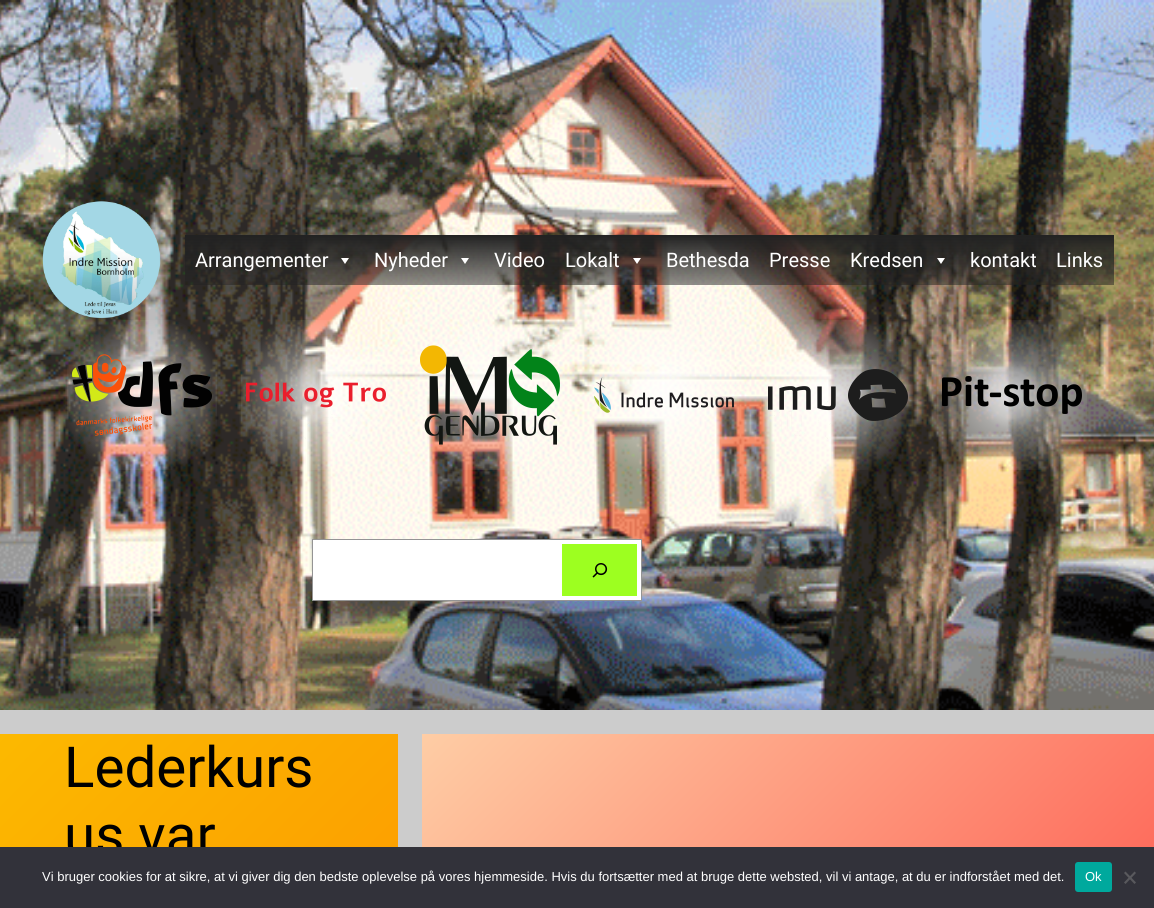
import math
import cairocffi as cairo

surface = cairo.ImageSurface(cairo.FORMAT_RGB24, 1154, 908)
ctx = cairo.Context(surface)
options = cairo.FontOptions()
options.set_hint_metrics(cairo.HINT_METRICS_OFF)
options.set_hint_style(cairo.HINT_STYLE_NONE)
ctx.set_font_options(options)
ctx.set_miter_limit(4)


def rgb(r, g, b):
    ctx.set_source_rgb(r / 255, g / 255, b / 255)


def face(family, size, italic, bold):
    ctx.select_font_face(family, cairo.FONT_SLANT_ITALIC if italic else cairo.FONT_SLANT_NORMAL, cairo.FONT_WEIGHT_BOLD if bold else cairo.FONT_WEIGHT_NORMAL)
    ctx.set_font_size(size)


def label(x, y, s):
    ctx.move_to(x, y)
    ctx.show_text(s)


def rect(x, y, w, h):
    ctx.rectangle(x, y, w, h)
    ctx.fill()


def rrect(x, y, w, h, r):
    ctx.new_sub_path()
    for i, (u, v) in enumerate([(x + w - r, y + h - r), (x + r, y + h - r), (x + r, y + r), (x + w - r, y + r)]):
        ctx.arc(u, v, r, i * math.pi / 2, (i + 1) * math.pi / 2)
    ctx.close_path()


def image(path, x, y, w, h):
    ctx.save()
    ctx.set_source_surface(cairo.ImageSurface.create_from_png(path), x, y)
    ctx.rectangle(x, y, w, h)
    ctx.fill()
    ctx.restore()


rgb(204, 204, 204)
ctx.paint()
image('image0.png', 0, 0, 1154, 710)
image('image1.png', 42, 201, 119, 117)
face('Roboto', 20, 0, 0)
rgb(255, 255, 255)
label(195, 267, 'Arrangementer')
ctx.new_path()
ctx.move_to(349, 258)
ctx.line_to(345, 264)
ctx.line_to(341, 258)
ctx.close_path()
ctx.fill()
label(374, 267, 'Nyheder')
ctx.new_path()
ctx.move_to(469, 258)
ctx.line_to(465, 264)
ctx.line_to(461, 258)
ctx.close_path()
ctx.fill()
label(494, 267, 'Video')
label(565, 267, 'Lokalt')
ctx.new_path()
ctx.move_to(641, 258)
ctx.line_to(637, 264)
ctx.line_to(633, 258)
ctx.close_path()
ctx.fill()
label(666, 267, 'Bethesda')
label(769, 267, 'Presse')
label(850, 267, 'Kredsen')
ctx.new_path()
ctx.move_to(945, 258)
ctx.line_to(941, 264)
ctx.line_to(937, 258)
ctx.close_path()
ctx.fill()
label(970, 267, 'kontakt')
label(1056, 267, 'Links')
image('image2.png', 72, 354, 140, 82)
image('image3.png', 246, 382, 140, 57)
image('image4.png', 420, 345, 140, 100)
image('image5.png', 594, 377, 140, 36)
image('image6.png', 768, 369, 140, 70)
image('image7.png', 942, 376, 140, 38)
ctx.rectangle(312.5, 539.5, 329, 61)
ctx.fill_preserve()
rgb(148, 148, 148)
ctx.set_line_width(1)
ctx.stroke()
rgb(157, 255, 32)
rect(562, 544, 75, 52)
image('image8.png', 592, 563, 16, 15)
gradient = cairo.LinearGradient(-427, 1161, 825, 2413)
gradient.add_color_stop_rgba(0, 0.988, 0.725, 0, 1)
gradient.add_color_stop_rgba(1, 1, 0.267, 0, 1)
ctx.set_source(gradient)
rect(0, 734, 398, 113)
face('Roboto', 56.5, 0, 0)
rgb(0, 0, 0)
label(64, 787, 'Lederkurs')
label(64, 855, 'us var')
gradient = cairo.LinearGradient(78, 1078, 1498, 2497)
gradient.add_color_stop_rgba(0, 0.996, 0.804, 0.647, 1)
gradient.add_color_stop_rgba(0.5, 0.996, 0.176, 0.176, 1)
gradient.add_color_stop_rgba(1, 0.42, 0, 0.243, 1)
ctx.set_source(gradient)
rect(422, 734, 732, 113)
rgb(50, 50, 58)
rect(0, 847, 1154, 61)
face('Liberation Sans', 13, 0, 0)
rgb(255, 255, 255)
label(42, 881, 'Vi bruger cookies for at sikre, at vi giver dig den bedste oplevelse på vores hjemmeside. Hvis du fortsætter med at bruge dette websted, vil vi antage, at du er indforstået med det.')
rgb(0, 169, 157)
rrect(1075, 862, 37, 30, 3)
ctx.fill()
rgb(255, 255, 255)
label(1085, 881, 'Ok')
rgb(89, 89, 93)
ctx.new_path()
ctx.move_to(1134.5, 871.5)
ctx.line_to(1136, 873)
ctx.line_to(1125.5, 884)
ctx.line_to(1124, 882.5)
ctx.close_path()
ctx.fill()
ctx.new_path()
ctx.move_to(1124, 873)
ctx.line_to(1125.5, 871.5)
ctx.line_to(1136, 882.5)
ctx.line_to(1134.5, 884)
ctx.close_path()
ctx.fill()
surface.write_to_png('render.png')
